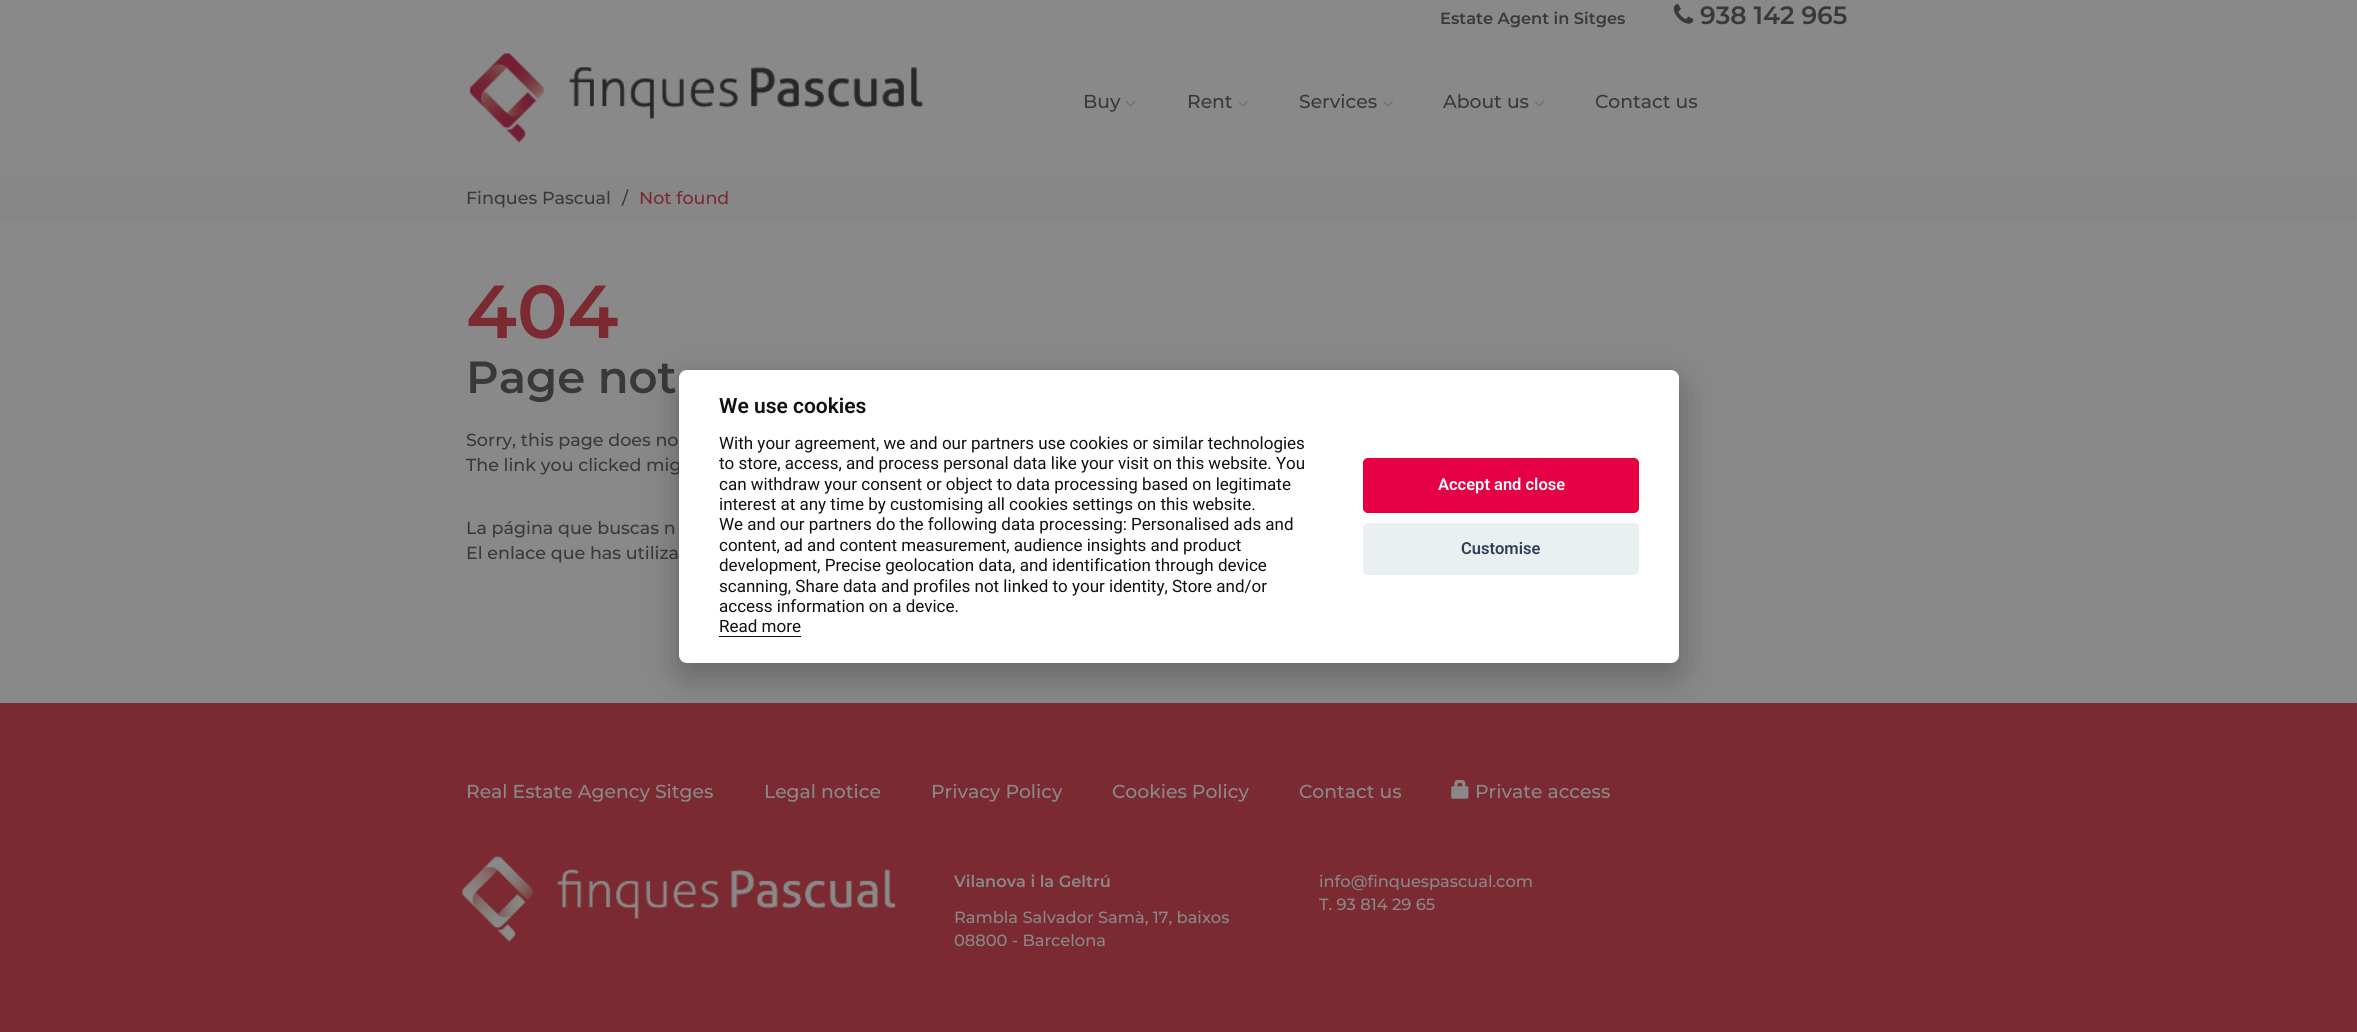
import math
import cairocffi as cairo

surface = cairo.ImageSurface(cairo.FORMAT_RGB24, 2357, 1032)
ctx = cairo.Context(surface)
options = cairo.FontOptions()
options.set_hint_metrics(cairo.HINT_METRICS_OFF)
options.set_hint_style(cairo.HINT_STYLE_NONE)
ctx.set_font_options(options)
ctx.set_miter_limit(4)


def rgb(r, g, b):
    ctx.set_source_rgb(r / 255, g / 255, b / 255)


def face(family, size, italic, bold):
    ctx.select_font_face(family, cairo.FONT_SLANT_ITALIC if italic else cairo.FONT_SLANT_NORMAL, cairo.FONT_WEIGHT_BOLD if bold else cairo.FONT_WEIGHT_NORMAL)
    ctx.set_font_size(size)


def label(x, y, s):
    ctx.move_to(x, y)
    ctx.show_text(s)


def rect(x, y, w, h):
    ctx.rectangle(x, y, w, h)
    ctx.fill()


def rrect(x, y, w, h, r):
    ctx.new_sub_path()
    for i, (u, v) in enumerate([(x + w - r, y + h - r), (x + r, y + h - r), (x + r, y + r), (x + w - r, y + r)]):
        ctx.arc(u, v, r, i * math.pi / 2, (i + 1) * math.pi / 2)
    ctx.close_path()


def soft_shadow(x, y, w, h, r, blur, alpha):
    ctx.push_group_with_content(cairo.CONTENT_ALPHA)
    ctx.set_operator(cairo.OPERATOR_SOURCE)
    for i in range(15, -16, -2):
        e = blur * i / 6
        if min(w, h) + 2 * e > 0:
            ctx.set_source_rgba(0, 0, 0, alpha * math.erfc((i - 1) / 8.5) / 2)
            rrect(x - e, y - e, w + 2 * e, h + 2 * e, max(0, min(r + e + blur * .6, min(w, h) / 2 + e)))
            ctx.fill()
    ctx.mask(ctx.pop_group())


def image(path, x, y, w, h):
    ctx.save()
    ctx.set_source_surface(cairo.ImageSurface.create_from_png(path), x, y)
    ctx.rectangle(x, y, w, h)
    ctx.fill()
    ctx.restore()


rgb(123, 42, 49)
ctx.paint()
rgb(137, 137, 137)
rect(0, 0, 2357, 176)
face('Montserrat SemiBold', 16.25, 0, 0)
rgb(57, 57, 58)
label(1440, 24, 'Estate Agent in Sitges')
image('image0.png', 1673, 4, 21, 20)
face('Montserrat SemiBold', 25, 0, 0)
label(1700, 24, '938 142 965')
image('image1.png', 469, 53, 454, 90)
face('Montserrat Medium', 18.75, 0, 0)
label(1083, 108, 'Buy')
image('image2.png', 1126, 100, 10, 7)
label(1187, 108, 'Rent')
image('image3.png', 1238, 100, 10, 7)
label(1299, 108, 'Services')
image('image3.png', 1383, 100, 10, 7)
label(1443, 108, 'About us')
image('image4.png', 1534, 100, 10, 7)
label(1595, 108, 'Contact us')
rgb(137, 137, 137)
rect(0, 221, 2357, 482)
rgb(135, 135, 135)
rect(0, 176, 2357, 45)
face('Montserrat Medium', 17.5, 0, 0)
rgb(57, 57, 58)
label(466, 204, 'Finques Pascual')
label(622, 204, '/')
rgb(123, 42, 49)
label(639, 204, 'Not found')
face('Montserrat SemiBold', 75, 0, 0)
label(466, 338, '404')
face('Montserrat SemiBold', 45, 0, 0)
rgb(57, 57, 58)
label(466, 393, 'Page not')
face('Montserrat Medium', 17.5, 0, 0)
label(466, 446, 'Sorry, this page does no')
label(466, 471, 'The link you clicked mig')
label(466, 534, 'La página que buscas n')
label(466, 559, 'El enlace que has utiliza')
rgb(2, 2, 3)
soft_shadow(679, 383, 1000, 292, 8, 19, 0.28)
rgb(255, 255, 255)
rrect(679, 370, 1000, 293, 8)
ctx.fill()
face('Roboto SemiBold', 21, 0, 0)
rgb(17, 17, 17)
label(719, 413, 'We use cookies')
face('Roboto', 17, 0, 0)
label(719, 449, 'With your agreement, we and our partners use cookies or similar technologies')
label(719, 469, 'to store, access, and process personal data like your visit on this website. You')
label(719, 490, 'can withdraw your consent or object to data processing based on legitimate')
label(719, 510, 'interest at any time by customising all cookies settings on this website.')
label(719, 530, 'We and our partners do the following data processing: Personalised ads and')
label(719, 551, 'content, ad and content measurement, audience insights and product')
label(719, 571, 'development, Precise geolocation data, and identification through device')
label(719, 592, 'scanning, Share data and profiles not linked to your identity, Store and/or')
label(719, 612, 'access information on a device.')
label(719, 632, 'Read more')
rect(719, 636, 82, 1)
rgb(230, 0, 70)
rrect(1363.5, 458.5, 275, 54, 4.5)
ctx.fill_preserve()
rgb(230, 0, 32)
ctx.set_line_width(1)
ctx.stroke()
face('Roboto SemiBold', 16.5, 0, 0)
rgb(255, 255, 255)
label(1438, 490, 'Accept and close')
rgb(234, 239, 242)
rrect(1363, 523, 276, 52, 5)
ctx.fill()
rgb(45, 65, 86)
label(1461, 554, 'Customise')
face('Montserrat Medium', 18.75, 0, 0)
rgb(137, 137, 137)
label(466, 798, 'Real Estate Agency Sitges')
label(764, 798, 'Legal notice')
label(931, 798, 'Privacy Policy')
label(1112, 798, 'Cookies Policy')
label(1299, 798, 'Contact us')
image('image5.png', 1451, 780, 18, 19)
label(1475, 798, 'Private access')
image('image6.png', 461, 855, 435, 88)
face('Montserrat SemiBold', 16.25, 0, 0)
label(954, 887, 'Vilanova i la Geltrú')
face('Montserrat Medium', 16.25, 0, 0)
label(954, 923, 'Rambla Salvador Samà, 17, baixos')
label(954, 946, '08800 - Barcelona')
label(1319, 887, 'info@finquespascual.com')
label(1319, 910, 'T. 93 814 29 65')
surface.write_to_png('render.png')
